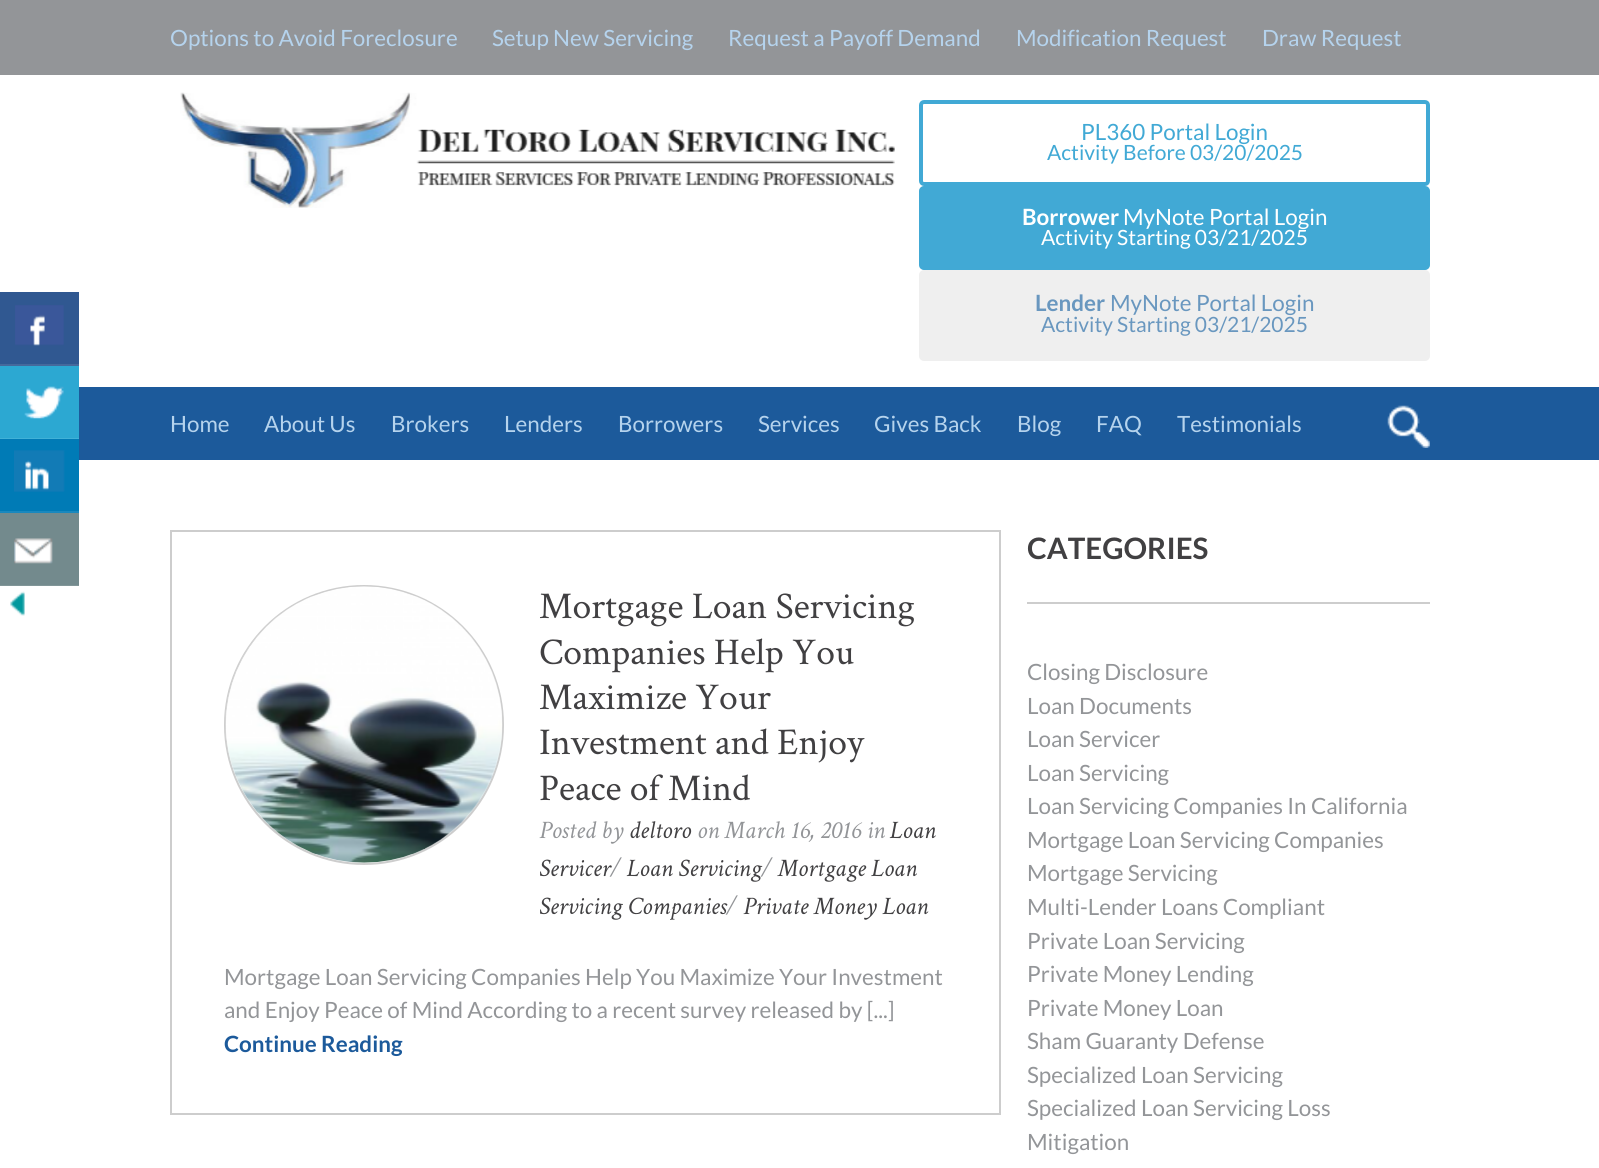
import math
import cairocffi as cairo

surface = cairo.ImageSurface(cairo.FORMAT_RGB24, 1599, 1168)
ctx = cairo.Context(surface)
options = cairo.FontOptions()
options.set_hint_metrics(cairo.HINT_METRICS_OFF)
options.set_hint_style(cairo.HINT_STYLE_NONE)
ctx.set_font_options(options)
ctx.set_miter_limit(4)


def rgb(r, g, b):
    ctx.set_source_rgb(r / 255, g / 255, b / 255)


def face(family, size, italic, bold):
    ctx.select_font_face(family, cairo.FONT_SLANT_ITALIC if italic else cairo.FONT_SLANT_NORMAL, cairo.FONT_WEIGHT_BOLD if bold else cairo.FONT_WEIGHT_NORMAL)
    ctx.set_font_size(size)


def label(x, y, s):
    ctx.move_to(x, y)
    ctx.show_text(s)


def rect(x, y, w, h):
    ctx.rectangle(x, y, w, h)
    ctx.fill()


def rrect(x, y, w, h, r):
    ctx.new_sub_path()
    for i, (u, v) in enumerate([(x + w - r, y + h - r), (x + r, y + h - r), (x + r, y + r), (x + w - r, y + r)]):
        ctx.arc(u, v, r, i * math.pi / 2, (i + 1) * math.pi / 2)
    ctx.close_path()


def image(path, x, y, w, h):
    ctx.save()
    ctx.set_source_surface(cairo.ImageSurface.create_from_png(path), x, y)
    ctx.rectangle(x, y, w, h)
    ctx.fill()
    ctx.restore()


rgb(255, 255, 255)
ctx.paint()
rgb(48, 88, 145)
rect(0, 292, 79, 72)
rgb(69, 105, 156)
rect(0, 364, 79, 2)
image('image0.png', 15, 305, 49, 41)
rgb(44, 168, 210)
rect(0, 366, 79, 72)
rgb(65, 177, 215)
rect(0, 438, 79, 1)
image('image1.png', 24, 386, 40, 33)
rgb(0, 123, 182)
rect(0, 439, 79, 72)
rgb(26, 136, 189)
rect(0, 511, 79, 2)
image('image2.png', 14, 450, 51, 42)
rgb(115, 138, 141)
rect(0, 513, 79, 72)
rgb(129, 150, 152)
rect(0, 585, 79, 1)
image('image3.png', 14, 538, 39, 26)
image('image4.png', 10, 591, 15, 25)
rgb(147, 149, 152)
rect(0, 0, 1599, 75)
face('Lato', 22.4, 0, 0)
rgb(181, 211, 237)
label(170, 46, 'Options to Avoid Foreclosure')
label(492, 46, 'Setup New Servicing')
label(728, 46, 'Request a Payoff Demand')
label(1016, 46, 'Modification Request')
label(1262, 46, 'Draw Request')
image('image5.png', 180, 92, 715, 116)
rrect(921, 102, 507, 82, 3)
rgb(65, 169, 213)
ctx.set_line_width(4)
ctx.stroke()
label(1081, 140, 'PL360 Portal Login')
face('Lato', 21, 0, 0)
label(1047, 160, 'Activity Before 03/20/2025')
rrect(920, 187, 509, 82, 4)
ctx.fill_preserve()
ctx.set_line_width(2)
ctx.stroke()
face('Lato', 22.4, 0, 1)
rgb(255, 255, 255)
label(1022, 225, 'Borrower')
face('Lato', 22.4, 0, 0)
label(1123, 225, 'MyNote Portal Login')
face('Lato', 21, 0, 0)
label(1041, 245, 'Activity Starting 03/21/2025')
rgb(239, 239, 239)
rrect(920, 271, 509, 89, 4)
ctx.fill_preserve()
ctx.stroke()
face('Lato', 22.4, 0, 1)
rgb(105, 151, 191)
label(1035, 311, 'Lender')
face('Lato', 22.4, 0, 0)
label(1110, 311, 'MyNote Portal Login')
face('Lato', 21, 0, 0)
label(1041, 332, 'Activity Starting 03/21/2025')
rgb(28, 90, 155)
rect(79, 387, 1520, 73)
face('Lato', 22.4, 0, 0)
rgb(181, 211, 237)
label(170, 432, 'Home')
label(264, 432, 'About Us')
label(391, 432, 'Brokers')
label(504, 432, 'Lenders')
label(618, 432, 'Borrowers')
label(758, 432, 'Services')
label(874, 432, 'Gives Back')
label(1017, 432, 'Blog')
label(1096, 432, 'FAQ')
label(1177, 432, 'Testimonials')
image('image6.png', 1387, 405, 43, 43)
ctx.rectangle(171, 531, 829, 583)
rgb(205, 205, 205)
ctx.stroke()
ctx.arc(364, 725, 139, 0, 2 * math.pi)
ctx.stroke()
image('image7.png', 225, 586, 278, 277)
face('Crimson Text', 37.75, 0, 0)
rgb(65, 64, 66)
label(539, 618, 'Mortgage Loan Servicing')
label(539, 664, 'Companies Help You')
label(539, 709, 'Maximize Your')
label(539, 754, 'Investment and Enjoy')
label(539, 800, 'Peace of Mind')
face('Crimson Text', 25.25, 1, 0)
rgb(147, 149, 152)
label(539, 838, 'Posted by')
rgb(65, 64, 66)
label(629, 838, 'deltoro')
rgb(147, 149, 152)
label(697, 838, 'on March 16, 2016 in')
rgb(65, 64, 66)
label(890, 838, 'Loan')
label(539, 876, 'Servicer')
rgb(147, 149, 152)
label(610, 876, '/')
rgb(65, 64, 66)
label(627, 876, 'Loan Servicing')
rgb(147, 149, 152)
label(761, 876, '/')
rgb(65, 64, 66)
label(778, 876, 'Mortgage Loan')
label(539, 914, 'Servicing Companies')
rgb(147, 149, 152)
label(726, 914, '/')
rgb(65, 64, 66)
label(743, 914, 'Private Money Loan')
face('Lato', 22.4, 0, 0)
rgb(147, 149, 152)
label(224, 985, 'Mortgage Loan Servicing Companies Help You Maximize Your Investment')
label(224, 1018, 'and Enjoy Peace of Mind According to a recent survey released by [...]')
face('Lato', 22.4, 0, 1)
rgb(28, 90, 155)
label(224, 1052, 'Continue Reading')
rgb(205, 205, 205)
rect(1027, 602, 403, 2)
face('Lato', 29.5, 0, 1)
rgb(65, 64, 66)
label(1027, 559, 'CATEGORIES')
face('Lato', 22.4, 0, 0)
rgb(147, 149, 152)
label(1027, 680, 'Closing Disclosure')
label(1027, 714, 'Loan Documents')
label(1027, 747, 'Loan Servicer')
label(1027, 781, 'Loan Servicing')
label(1027, 814, 'Loan Servicing Companies In California')
label(1027, 848, 'Mortgage Loan Servicing Companies')
label(1027, 881, 'Mortgage Servicing')
label(1027, 915, 'Multi-Lender Loans Compliant')
label(1027, 949, 'Private Loan Servicing')
label(1027, 982, 'Private Money Lending')
label(1027, 1016, 'Private Money Loan')
label(1027, 1049, 'Sham Guaranty Defense')
label(1027, 1083, 'Specialized Loan Servicing')
label(1027, 1116, 'Specialized Loan Servicing Loss')
label(1027, 1150, 'Mitigation')
surface.write_to_png('render.png')
